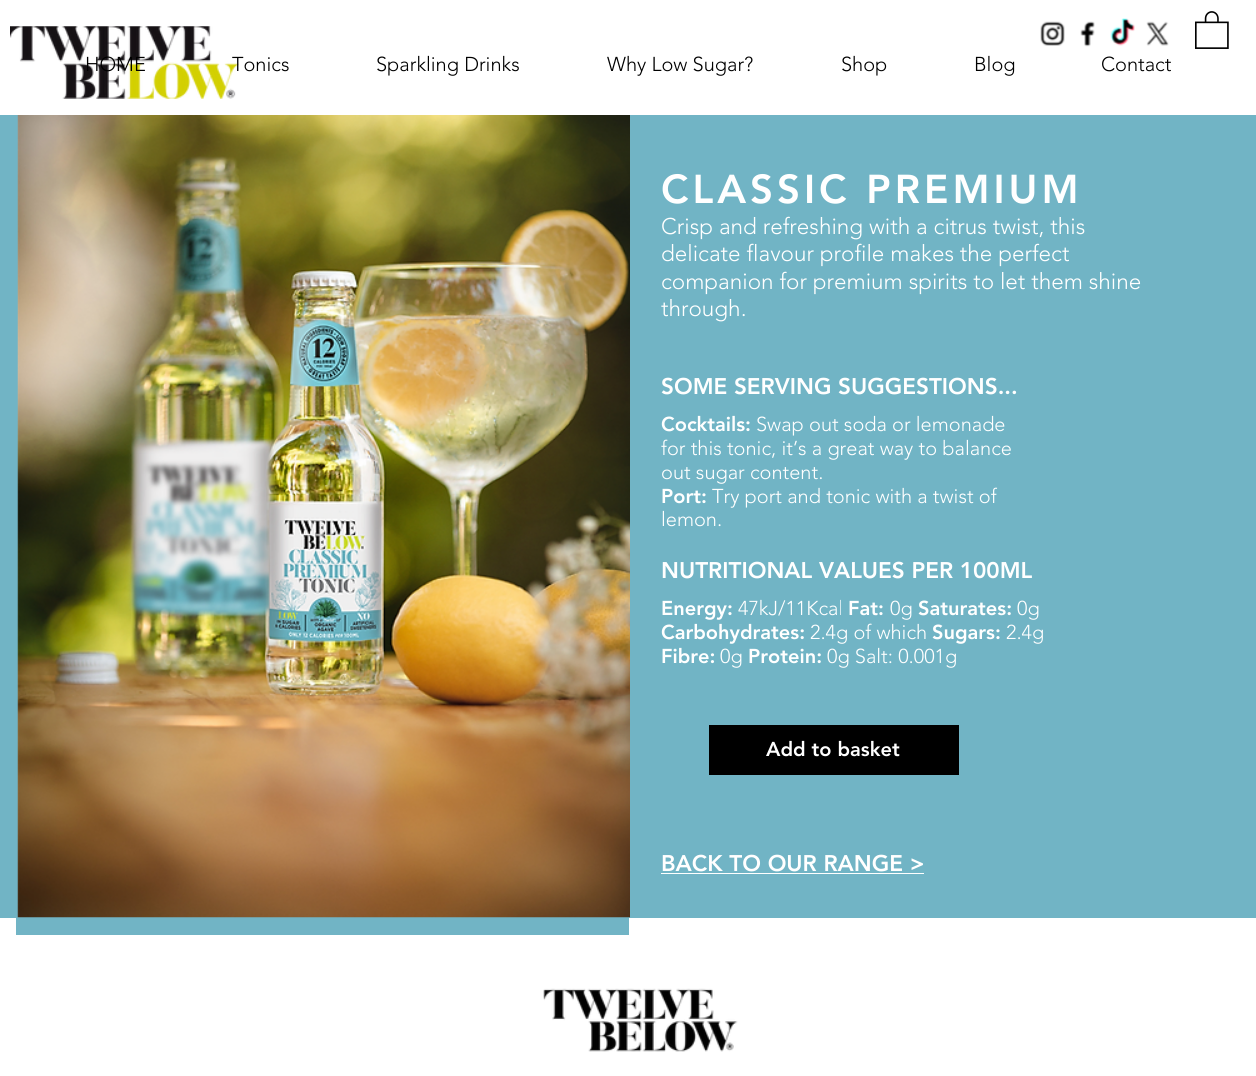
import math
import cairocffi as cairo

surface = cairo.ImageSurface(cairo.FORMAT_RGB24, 1256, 1076)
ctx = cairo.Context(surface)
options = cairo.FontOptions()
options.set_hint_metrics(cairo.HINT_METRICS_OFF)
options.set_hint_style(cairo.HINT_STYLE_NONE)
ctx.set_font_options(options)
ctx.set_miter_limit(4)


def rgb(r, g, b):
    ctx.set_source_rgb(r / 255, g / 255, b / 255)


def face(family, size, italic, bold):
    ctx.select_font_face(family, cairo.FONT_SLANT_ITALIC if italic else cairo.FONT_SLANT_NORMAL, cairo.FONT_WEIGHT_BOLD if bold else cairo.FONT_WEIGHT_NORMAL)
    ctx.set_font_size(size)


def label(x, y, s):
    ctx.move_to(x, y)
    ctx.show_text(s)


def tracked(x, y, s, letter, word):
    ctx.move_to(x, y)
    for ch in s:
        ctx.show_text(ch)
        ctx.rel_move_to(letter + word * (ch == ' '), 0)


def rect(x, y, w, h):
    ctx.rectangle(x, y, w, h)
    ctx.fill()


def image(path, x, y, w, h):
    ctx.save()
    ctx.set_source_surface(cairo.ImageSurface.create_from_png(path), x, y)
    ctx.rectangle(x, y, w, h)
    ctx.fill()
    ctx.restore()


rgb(255, 255, 255)
ctx.paint()
image('image0.png', 10, 26, 229, 73)
image('image1.png', 1040, 21, 25, 25)
image('image2.png', 1080, 21, 15, 26)
image('image3.png', 1110, 18, 25, 28)
image('image4.png', 1146, 21, 23, 25)
image('image5.png', 1195, 11, 34, 38)
face('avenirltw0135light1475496 Light', 20, 0, 0)
rgb(0, 0, 0)
label(85, 71, 'HOME')
label(232, 71, 'Tonics')
label(376, 71, 'Sparkling Drinks')
label(607, 71, 'Why Low Sugar?')
label(841, 71, 'Shop')
label(974, 71, 'Blog')
label(1101, 71, 'Contact')
rgb(113, 180, 197)
rect(0, 115, 16, 803)
rect(629, 115, 627, 803)
rect(16, 115, 613, 820)
image('image6.png', 17, 115, 613, 803)
face('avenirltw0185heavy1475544 Black', 40, 0, 0)
rgb(255, 255, 255)
tracked(661, 203, 'CLASSIC PREMIUM', 4, 0)
face('avenirltw0135light1475496 Light', 22.5, 0, 0)
label(661, 234, 'Crisp and refreshing with a citrus twist, this')
label(661, 261, 'delicate flavour profile makes the perfect')
label(661, 289, 'companion for premium spirits to let them shine')
label(661, 316, 'through.')
face('avenirltw0185heavy1475544 Black', 22.5, 0, 0)
label(661, 394, 'SOME SERVING SUGGESTIONS...')
face('avenirltw0185heavy1475544 Black', 20, 0, 0)
label(661, 431, 'Cocktails:')
face('avenirltw0135light1475496 Light', 20, 0, 0)
label(756, 431, 'Swap out soda or lemonade')
label(661, 455, 'for this tonic, it’s a great way to balance')
label(661, 479, 'out sugar content.')
face('avenirltw0185heavy1475544 Black', 20, 0, 0)
label(661, 503, 'Port:')
face('avenirltw0135light1475496 Light', 20, 0, 0)
label(712, 503, 'Try port and tonic with a twist of')
label(661, 526, 'lemon.')
face('avenirltw0185heavy1475544 Black', 22.5, 0, 0)
label(661, 578, 'NUTRITIONAL VALUES PER 100ML')
face('avenirltw0185heavy1475544 Black', 20, 0, 0)
label(661, 615, 'Energy:')
face('avenirltw0135light1475496 Light', 20, 0, 0)
label(738, 615, '47kJ/11Kcal')
face('avenirltw0185heavy1475544 Black', 20, 0, 0)
label(848, 615, 'Fat:')
face('avenirltw0135light1475496 Light', 20, 0, 0)
label(890, 615, '0g')
face('avenirltw0185heavy1475544 Black', 20, 0, 0)
label(918, 615, 'Saturates:')
face('avenirltw0135light1475496 Light', 20, 0, 0)
label(1017, 615, '0g')
face('avenirltw0185heavy1475544 Black', 20, 0, 0)
label(661, 639, 'Carbohydrates:')
face('avenirltw0135light1475496 Light', 20, 0, 0)
label(810, 639, '2.4g of which')
face('avenirltw0185heavy1475544 Black', 20, 0, 0)
label(932, 639, 'Sugars:')
face('avenirltw0135light1475496 Light', 20, 0, 0)
label(1006, 639, '2.4g')
face('avenirltw0185heavy1475544 Black', 20, 0, 0)
label(661, 663, 'Fibre:')
face('avenirltw0135light1475496 Light', 20, 0, 0)
label(720, 663, '0g')
face('avenirltw0185heavy1475544 Black', 20, 0, 0)
label(748, 663, 'Protein:')
face('avenirltw0135light1475496 Light', 20, 0, 0)
label(827, 663, '0g Salt: 0.001g')
rgb(0, 0, 0)
rect(709, 725, 250, 50)
face('avenirltw0185heavy1475544 Black', 20, 0, 0)
rgb(255, 255, 255)
label(766, 756, 'Add to basket')
face('avenirltw0185heavy1475544 Black', 22.5, 0, 0)
label(661, 871, 'BACK TO OUR RANGE >')
rect(661, 873, 263, 1)
image('image7.png', 543, 988, 195, 64)
surface.write_to_png('render.png')
